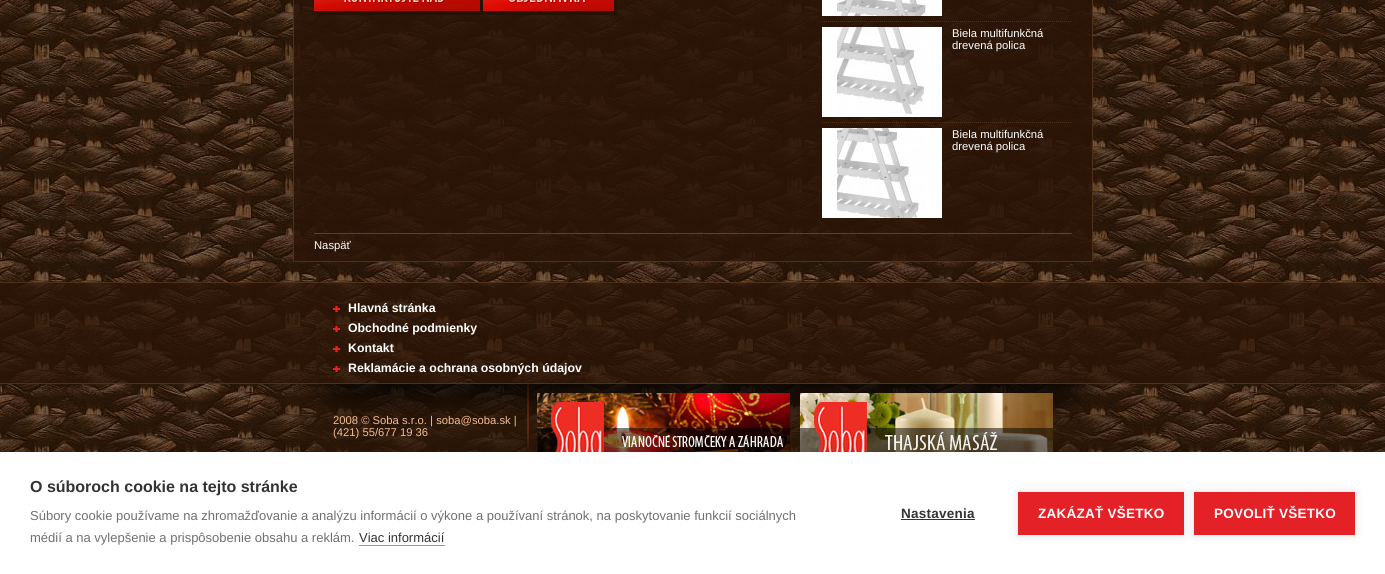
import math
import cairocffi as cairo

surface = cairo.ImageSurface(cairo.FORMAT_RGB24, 1385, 574)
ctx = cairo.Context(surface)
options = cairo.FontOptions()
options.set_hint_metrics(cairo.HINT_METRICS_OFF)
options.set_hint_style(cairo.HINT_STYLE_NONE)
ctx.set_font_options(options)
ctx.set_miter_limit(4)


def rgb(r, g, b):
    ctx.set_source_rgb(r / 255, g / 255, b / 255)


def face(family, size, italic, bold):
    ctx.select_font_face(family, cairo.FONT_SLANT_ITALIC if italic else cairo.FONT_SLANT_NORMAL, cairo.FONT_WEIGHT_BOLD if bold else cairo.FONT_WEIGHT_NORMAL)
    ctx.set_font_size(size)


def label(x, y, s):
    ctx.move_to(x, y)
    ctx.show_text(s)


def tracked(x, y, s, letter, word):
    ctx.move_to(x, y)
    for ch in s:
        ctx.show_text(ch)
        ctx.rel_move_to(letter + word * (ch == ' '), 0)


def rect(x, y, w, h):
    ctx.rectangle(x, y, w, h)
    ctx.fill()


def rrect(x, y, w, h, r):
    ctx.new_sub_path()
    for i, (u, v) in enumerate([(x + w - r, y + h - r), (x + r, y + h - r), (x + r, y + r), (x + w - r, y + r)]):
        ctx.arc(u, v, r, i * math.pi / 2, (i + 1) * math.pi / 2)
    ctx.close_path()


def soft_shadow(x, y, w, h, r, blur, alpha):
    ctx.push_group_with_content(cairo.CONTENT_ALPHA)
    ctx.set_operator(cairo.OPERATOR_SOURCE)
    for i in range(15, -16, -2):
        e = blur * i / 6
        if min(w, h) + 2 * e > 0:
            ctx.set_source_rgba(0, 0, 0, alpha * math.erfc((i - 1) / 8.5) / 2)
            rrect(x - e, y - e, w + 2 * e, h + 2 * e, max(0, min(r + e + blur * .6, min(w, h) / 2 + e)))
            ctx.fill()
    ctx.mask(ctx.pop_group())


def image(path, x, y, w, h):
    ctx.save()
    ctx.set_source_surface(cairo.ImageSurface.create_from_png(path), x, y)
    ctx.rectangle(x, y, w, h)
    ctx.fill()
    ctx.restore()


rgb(255, 255, 255)
ctx.paint()
image('image0.png', 0, 0, 1385, 452)
ctx.set_source_rgba(0.169, 0.082, 0.024, 0.85)
ctx.rectangle(293.5, -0.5, 799, 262)
ctx.fill_preserve()
rgb(79, 49, 26)
ctx.set_line_width(1)
ctx.stroke()
image('image1.png', 314, 0, 169, 15)
image('image2.png', 483, 0, 134, 15)
ctx.new_path()
ctx.move_to(822, 21.5)
ctx.line_to(1072, 21.5)
ctx.set_dash([1, 1])
ctx.stroke()
image('image3.png', 822, 0, 120, 16)
ctx.new_path()
ctx.move_to(822, 122.5)
ctx.line_to(1072, 122.5)
ctx.stroke()
image('image4.png', 822, 27, 120, 90)
face('Liberation Sans', 11.25, 0, 0)
rgb(255, 255, 255)
label(952, 37, 'Biela multifunkčná')
label(952, 49, 'drevená polica')
image('image5.png', 822, 128, 120, 90)
label(952, 138, 'Biela multifunkčná')
label(952, 150, 'drevená polica')
rgb(92, 64, 42)
rect(314, 233, 758, 1)
rgb(255, 255, 255)
label(314, 249, 'Naspäť')
ctx.set_source_rgba(0.169, 0.082, 0.024, 0.7)
rect(0, 283, 1385, 100)
rgb(79, 49, 26)
rect(0, 282, 1385, 1)
rect(0, 383, 1385, 1)
image('image6.png', 333, 306, 7, 6)
face('Liberation Sans', 12.3, 0, 1)
rgb(255, 255, 255)
label(348, 312, 'Hlavná stránka')
image('image7.png', 333, 326, 7, 6)
label(348, 332, 'Obchodné podmienky')
image('image8.png', 333, 346, 7, 6)
label(348, 352, 'Kontakt')
image('image9.png', 333, 366, 7, 6)
label(348, 372, 'Reklamácie a ochrana osobných údajov')
image('image13.png', 260, 384, 866, 68)
image('image10.png', 527, 384, 2, 68)
image('image11.png', 537, 393, 253, 59)
image('image12.png', 800, 393, 253, 59)
face('Liberation Sans', 11.25, 0, 0)
rgb(244, 188, 145)
label(333, 424, '2008 © Soba s.r.o. | soba@soba.sk |')
label(333, 436, '(421) 55/677 19 36')
rgb(0, 0, 0)
soft_shadow(0, 452, 1385, 122, 0, 10, 0.1)
rgb(255, 255, 255)
rect(0, 452, 1385, 122)
face('Liberation Sans', 16, 0, 1)
rgb(51, 51, 51)
label(30, 492, 'O súboroch cookie na tejto stránke')
face('Liberation Sans', 13, 0, 0)
rgb(112, 112, 112)
label(30, 520, 'Súbory cookie používame na zhromažďovanie a analýzu informácií o výkone a používaní stránok, na poskytovanie funkcií sociálnych')
label(30, 542, 'médií a na vylepšenie a prispôsobenie obsahu a reklám.')
rgb(51, 51, 51)
label(359, 542, 'Viac informácií')
rgb(153, 153, 153)
rect(359, 545, 86, 1)
face('Liberation Sans', 13.5, 0, 1)
rgb(51, 51, 51)
tracked(901, 518, 'Nastavenia', 0.25, 0)
rect(901, 519, 74, 1)
rgb(0, 0, 0)
soft_shadow(1018, 492, 166, 43, 0, 5, 0.12)
rgb(228, 33, 39)
rect(1018, 492, 166, 43)
rgb(255, 255, 255)
tracked(1038, 518, 'ZAKÁZAŤ VŠETKO', 0.25, 0)
rgb(0, 0, 0)
soft_shadow(1194, 492, 161, 43, 0, 5, 0.12)
rgb(228, 33, 39)
rect(1194, 492, 161, 43)
rgb(255, 255, 255)
tracked(1214, 518, 'POVOLIŤ VŠETKO', 0.25, 0)
surface.write_to_png('render.png')
